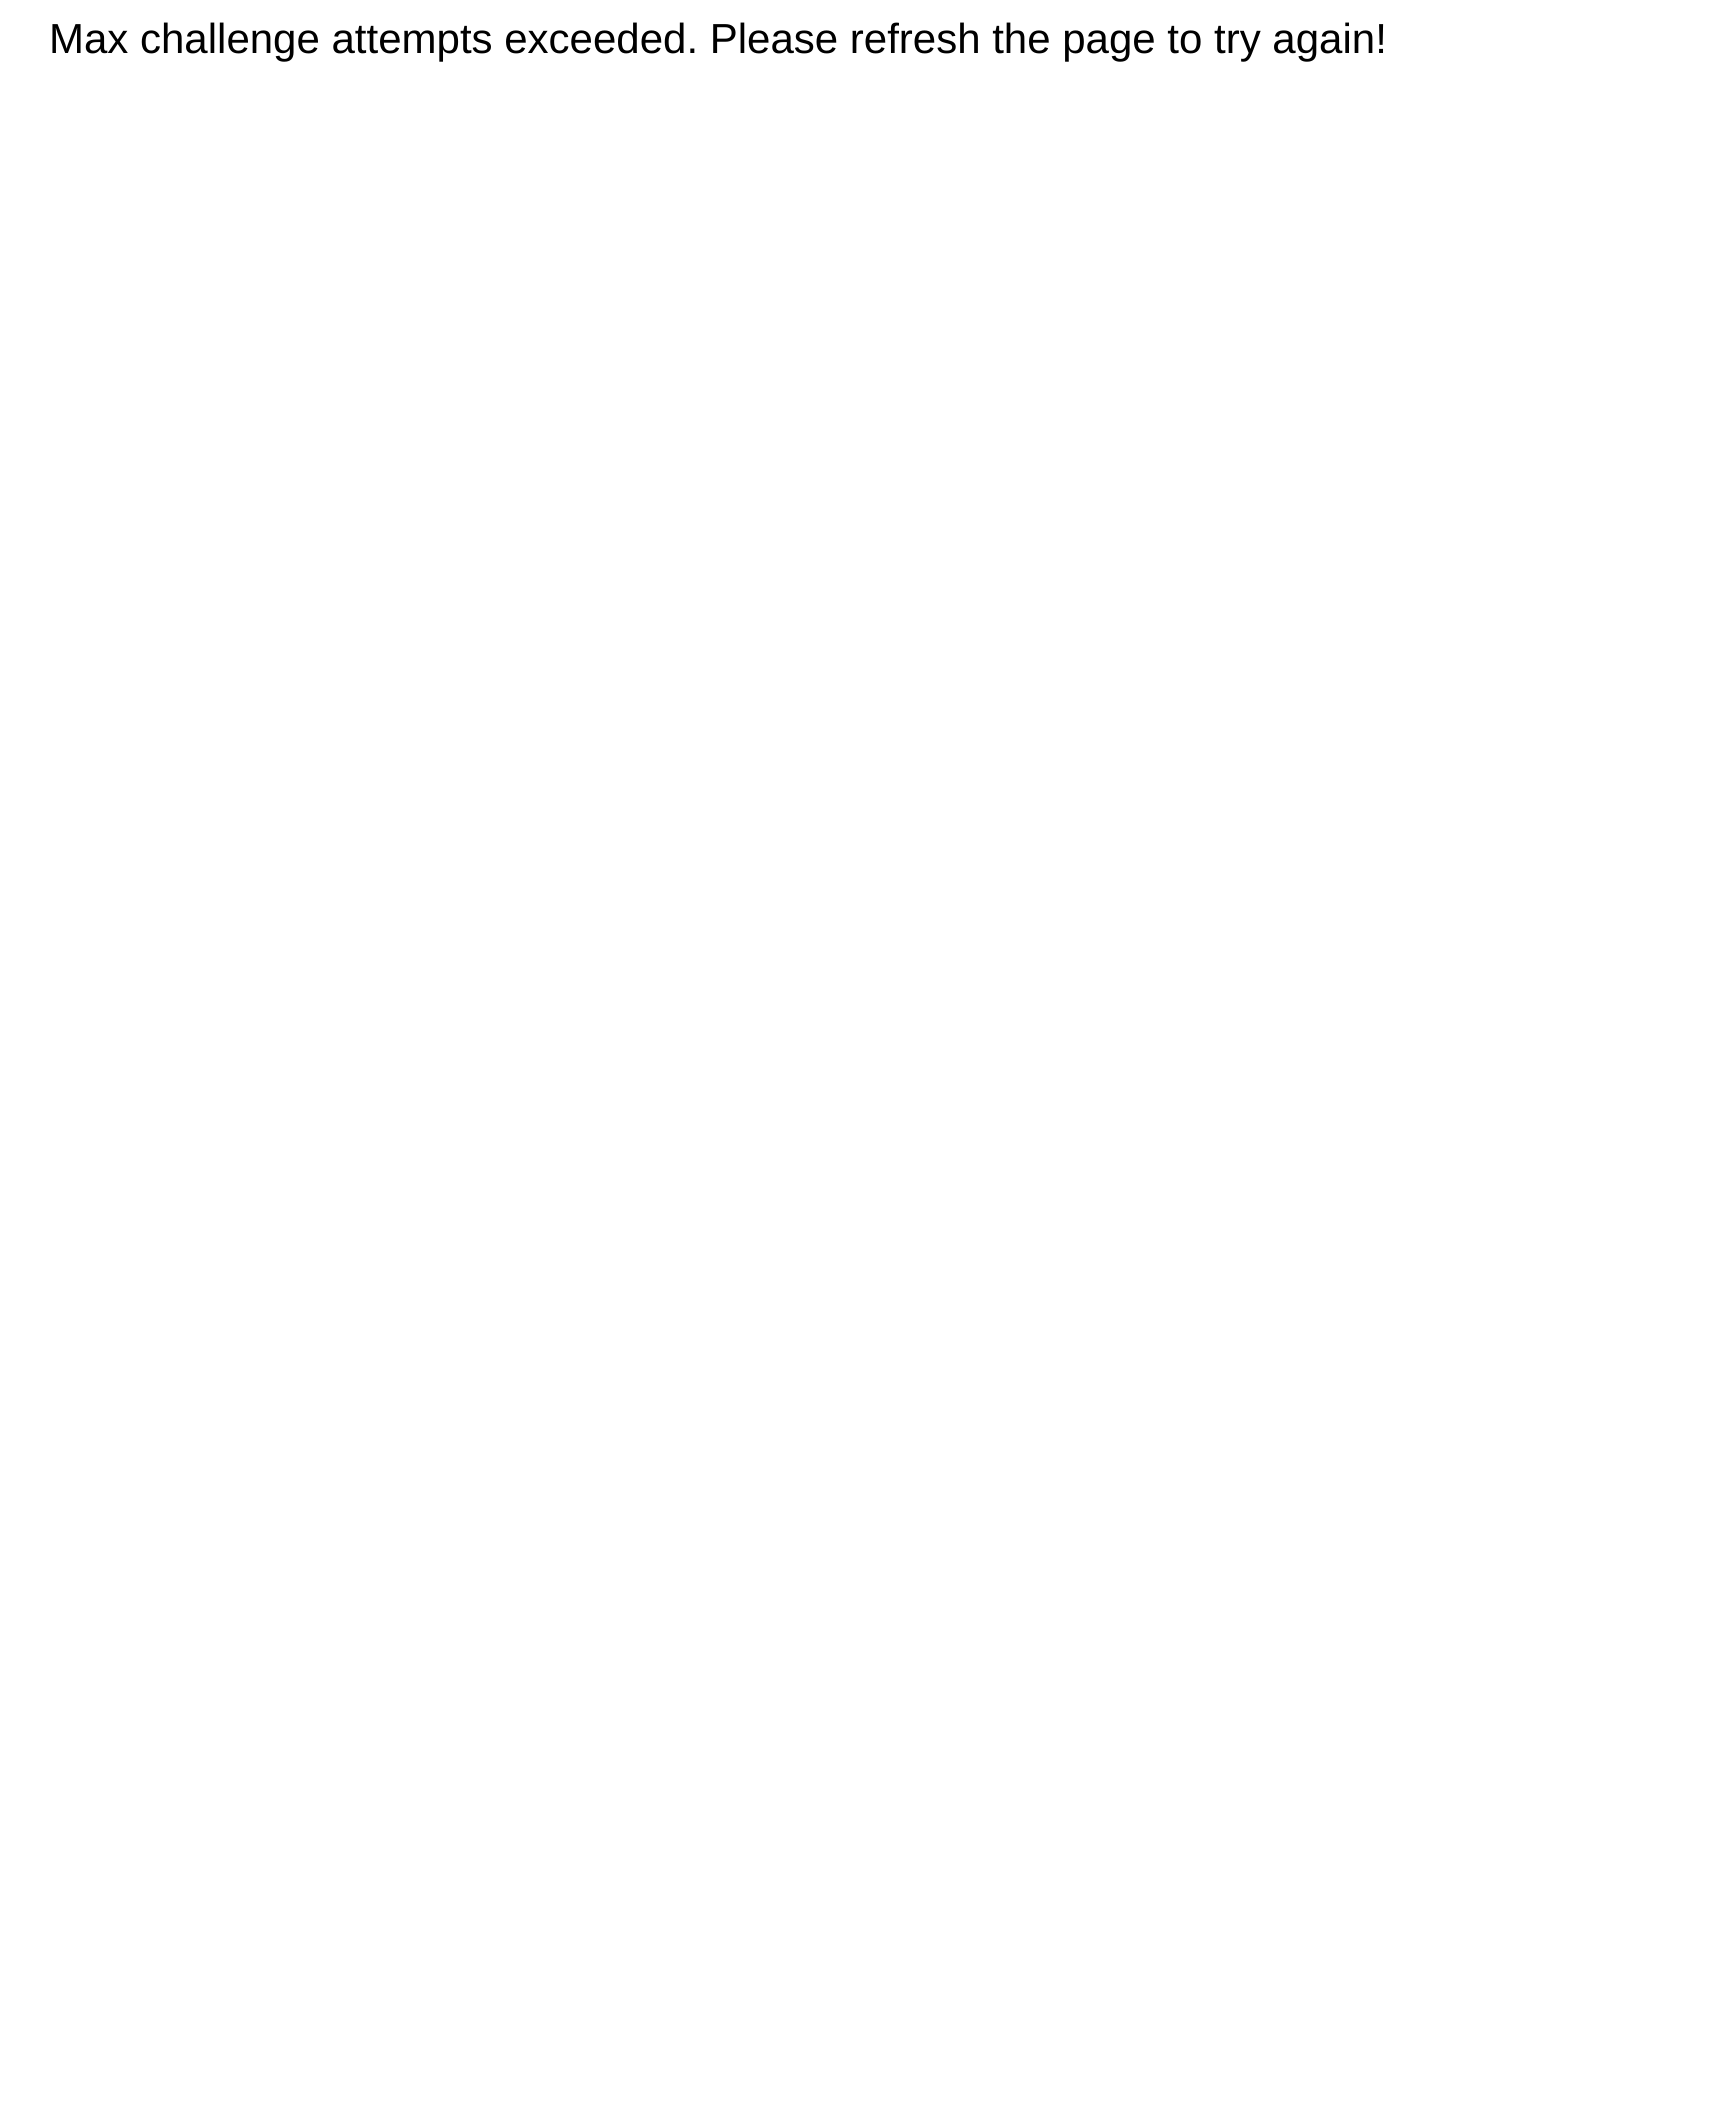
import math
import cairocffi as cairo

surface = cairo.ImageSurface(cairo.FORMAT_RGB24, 1711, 2102)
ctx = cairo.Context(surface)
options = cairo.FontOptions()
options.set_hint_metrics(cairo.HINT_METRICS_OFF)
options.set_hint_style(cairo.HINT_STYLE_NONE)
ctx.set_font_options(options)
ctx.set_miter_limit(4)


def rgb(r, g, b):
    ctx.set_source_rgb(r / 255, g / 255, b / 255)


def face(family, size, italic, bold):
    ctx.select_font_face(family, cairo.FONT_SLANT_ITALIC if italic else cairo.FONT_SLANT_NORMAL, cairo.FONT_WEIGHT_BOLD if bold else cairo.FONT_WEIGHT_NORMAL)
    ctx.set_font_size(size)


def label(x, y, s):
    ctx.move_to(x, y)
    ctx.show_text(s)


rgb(255, 255, 255)
ctx.paint()
face('Liberation Sans', 42, 0, 0)
rgb(0, 0, 0)
label(49, 53, 'Max challenge attempts exceeded. Please refresh the page to try again!')
surface.write_to_png('render.png')
